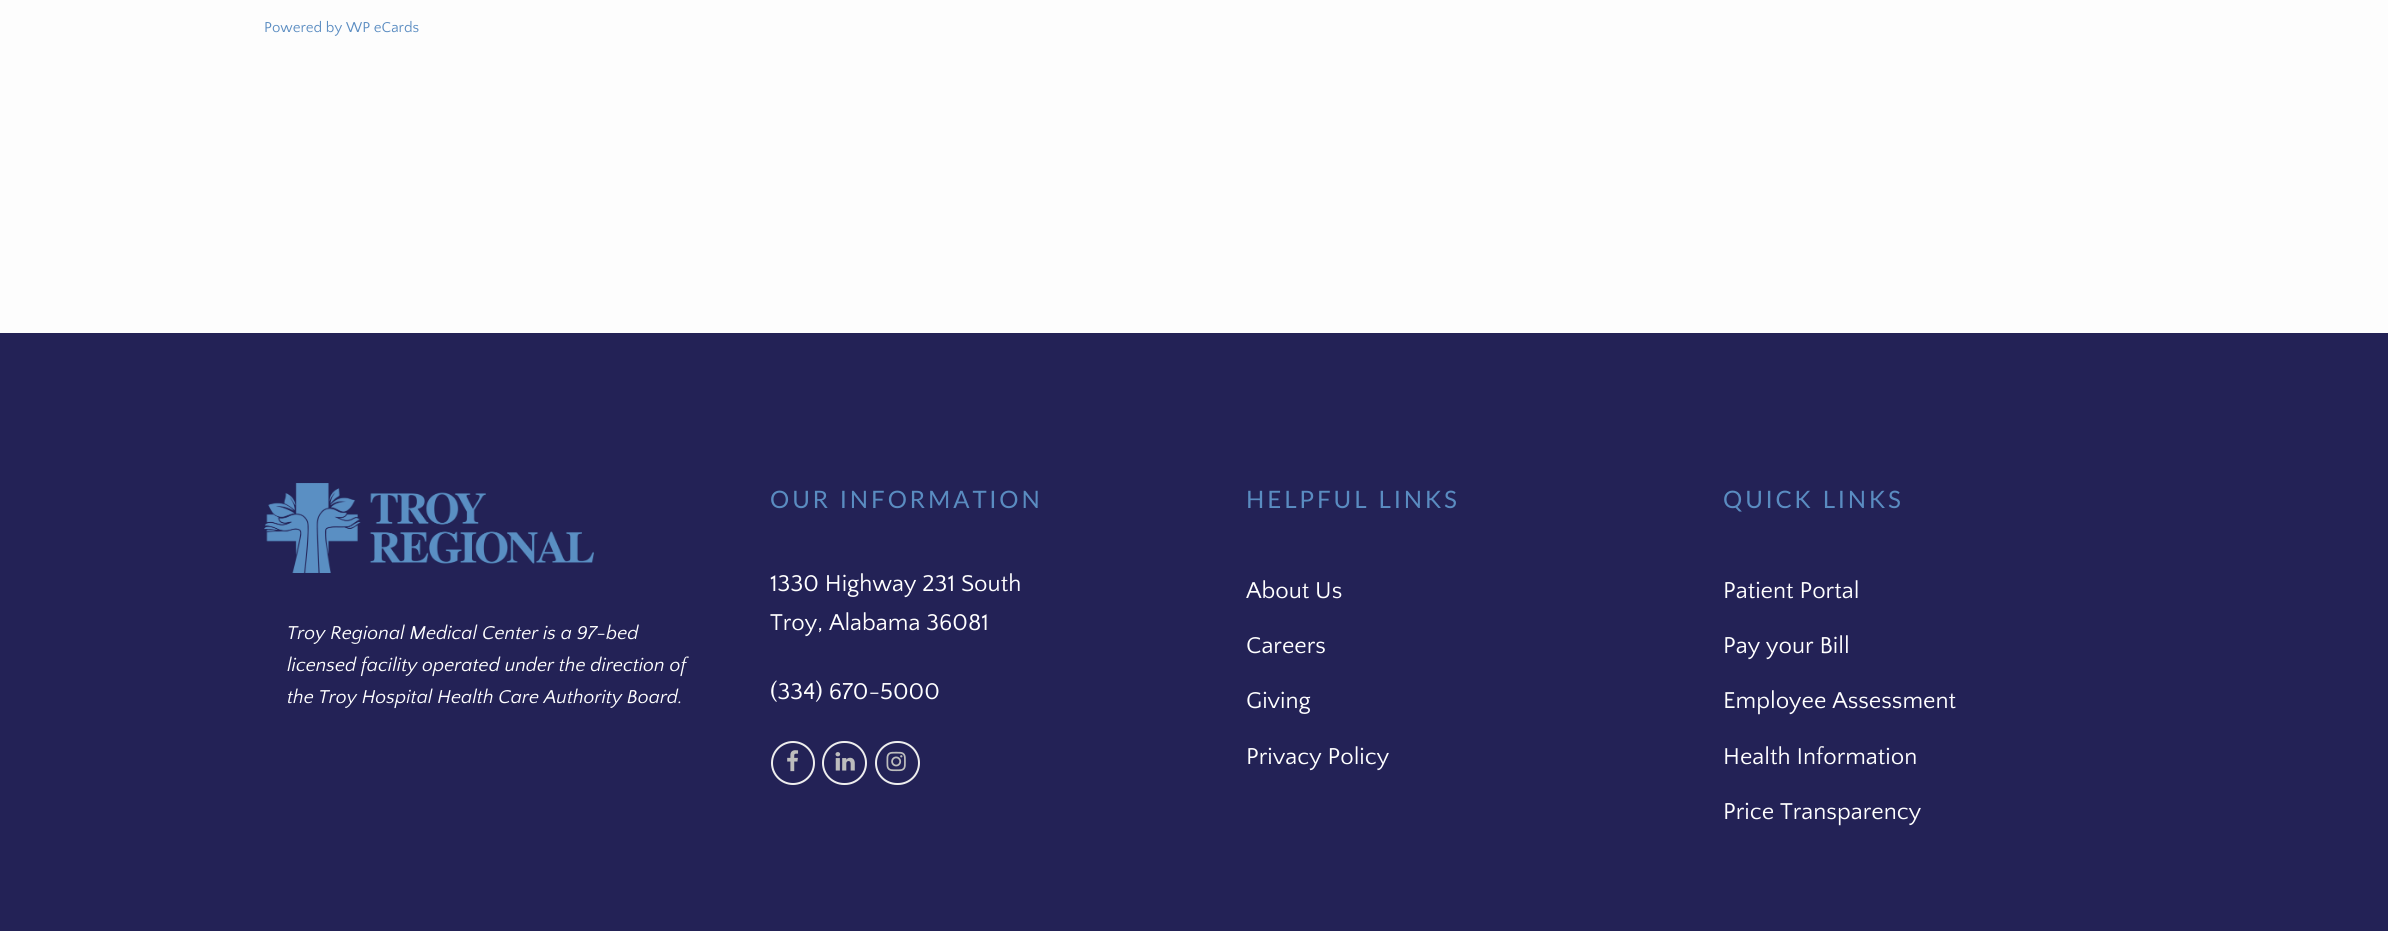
import math
import cairocffi as cairo

surface = cairo.ImageSurface(cairo.FORMAT_RGB24, 2388, 931)
ctx = cairo.Context(surface)
options = cairo.FontOptions()
options.set_hint_metrics(cairo.HINT_METRICS_OFF)
options.set_hint_style(cairo.HINT_STYLE_NONE)
ctx.set_font_options(options)
ctx.set_miter_limit(4)


def rgb(r, g, b):
    ctx.set_source_rgb(r / 255, g / 255, b / 255)


def face(family, size, italic, bold):
    ctx.select_font_face(family, cairo.FONT_SLANT_ITALIC if italic else cairo.FONT_SLANT_NORMAL, cairo.FONT_WEIGHT_BOLD if bold else cairo.FONT_WEIGHT_NORMAL)
    ctx.set_font_size(size)


def label(x, y, s):
    ctx.move_to(x, y)
    ctx.show_text(s)


def tracked(x, y, s, letter, word):
    ctx.move_to(x, y)
    for ch in s:
        ctx.show_text(ch)
        ctx.rel_move_to(letter + word * (ch == ' '), 0)


def rect(x, y, w, h):
    ctx.rectangle(x, y, w, h)
    ctx.fill()


def rrect(x, y, w, h, r):
    ctx.new_sub_path()
    for i, (u, v) in enumerate([(x + w - r, y + h - r), (x + r, y + h - r), (x + r, y + r), (x + w - r, y + r)]):
        ctx.arc(u, v, r, i * math.pi / 2, (i + 1) * math.pi / 2)
    ctx.close_path()


def image(path, x, y, w, h):
    ctx.save()
    ctx.set_source_surface(cairo.ImageSurface.create_from_png(path), x, y)
    ctx.rectangle(x, y, w, h)
    ctx.fill()
    ctx.restore()


rgb(253, 253, 253)
ctx.paint()
face('Quattrocento Sans', 15, 0, 0)
rgb(90, 140, 193)
label(264, 32, 'Powered by WP eCards')
rgb(35, 34, 86)
rect(0, 333, 2388, 598)
image('image0.png', 264, 483, 330, 90)
face('Quattrocento Sans', 19.5, 1, 0)
rgb(255, 255, 255)
label(287, 639, 'Troy Regional Medical Center is a 97-bed')
label(287, 671, 'licensed facility operated under the direction of')
label(287, 703, 'the Troy Hospital Health Care Authority Board.')
face('Lato', 24, 0, 0)
rgb(90, 140, 193)
tracked(770, 508, 'OUR INFORMATION', 3, 0)
face('Quattrocento Sans', 24, 0, 0)
rgb(255, 255, 255)
label(770, 591, '1330 Highway 231 South')
label(770, 630, 'Troy, Alabama 36081')
label(770, 699, '(334) 670-5000')
ctx.new_path()
ctx.arc(793, 763, 21, 0, 2 * math.pi)
rgb(238, 238, 238)
ctx.stroke()
image('image1.png', 787, 750, 12, 22)
rrect(823, 742, 43, 42, 21)
ctx.stroke()
image('image2.png', 835, 752, 20, 19)
rrect(876, 742, 43, 42, 21)
ctx.stroke()
image('image3.png', 886, 751, 20, 21)
face('Lato', 24, 0, 0)
rgb(90, 140, 193)
tracked(1246, 508, 'HELPFUL LINKS', 3, 0)
face('Quattrocento Sans', 24, 0, 0)
rgb(255, 255, 255)
label(1246, 598, 'About Us')
label(1246, 653, 'Careers')
label(1246, 708, 'Giving')
label(1246, 764, 'Privacy Policy')
face('Lato', 24, 0, 0)
rgb(90, 140, 193)
tracked(1723, 508, 'QUICK LINKS', 3, 0)
face('Quattrocento Sans', 24, 0, 0)
rgb(255, 255, 255)
label(1723, 598, 'Patient Portal')
label(1723, 653, 'Pay your Bill')
label(1723, 708, 'Employee Assessment')
label(1723, 764, 'Health Information')
label(1723, 819, 'Price Transparency')
surface.write_to_png('render.png')
